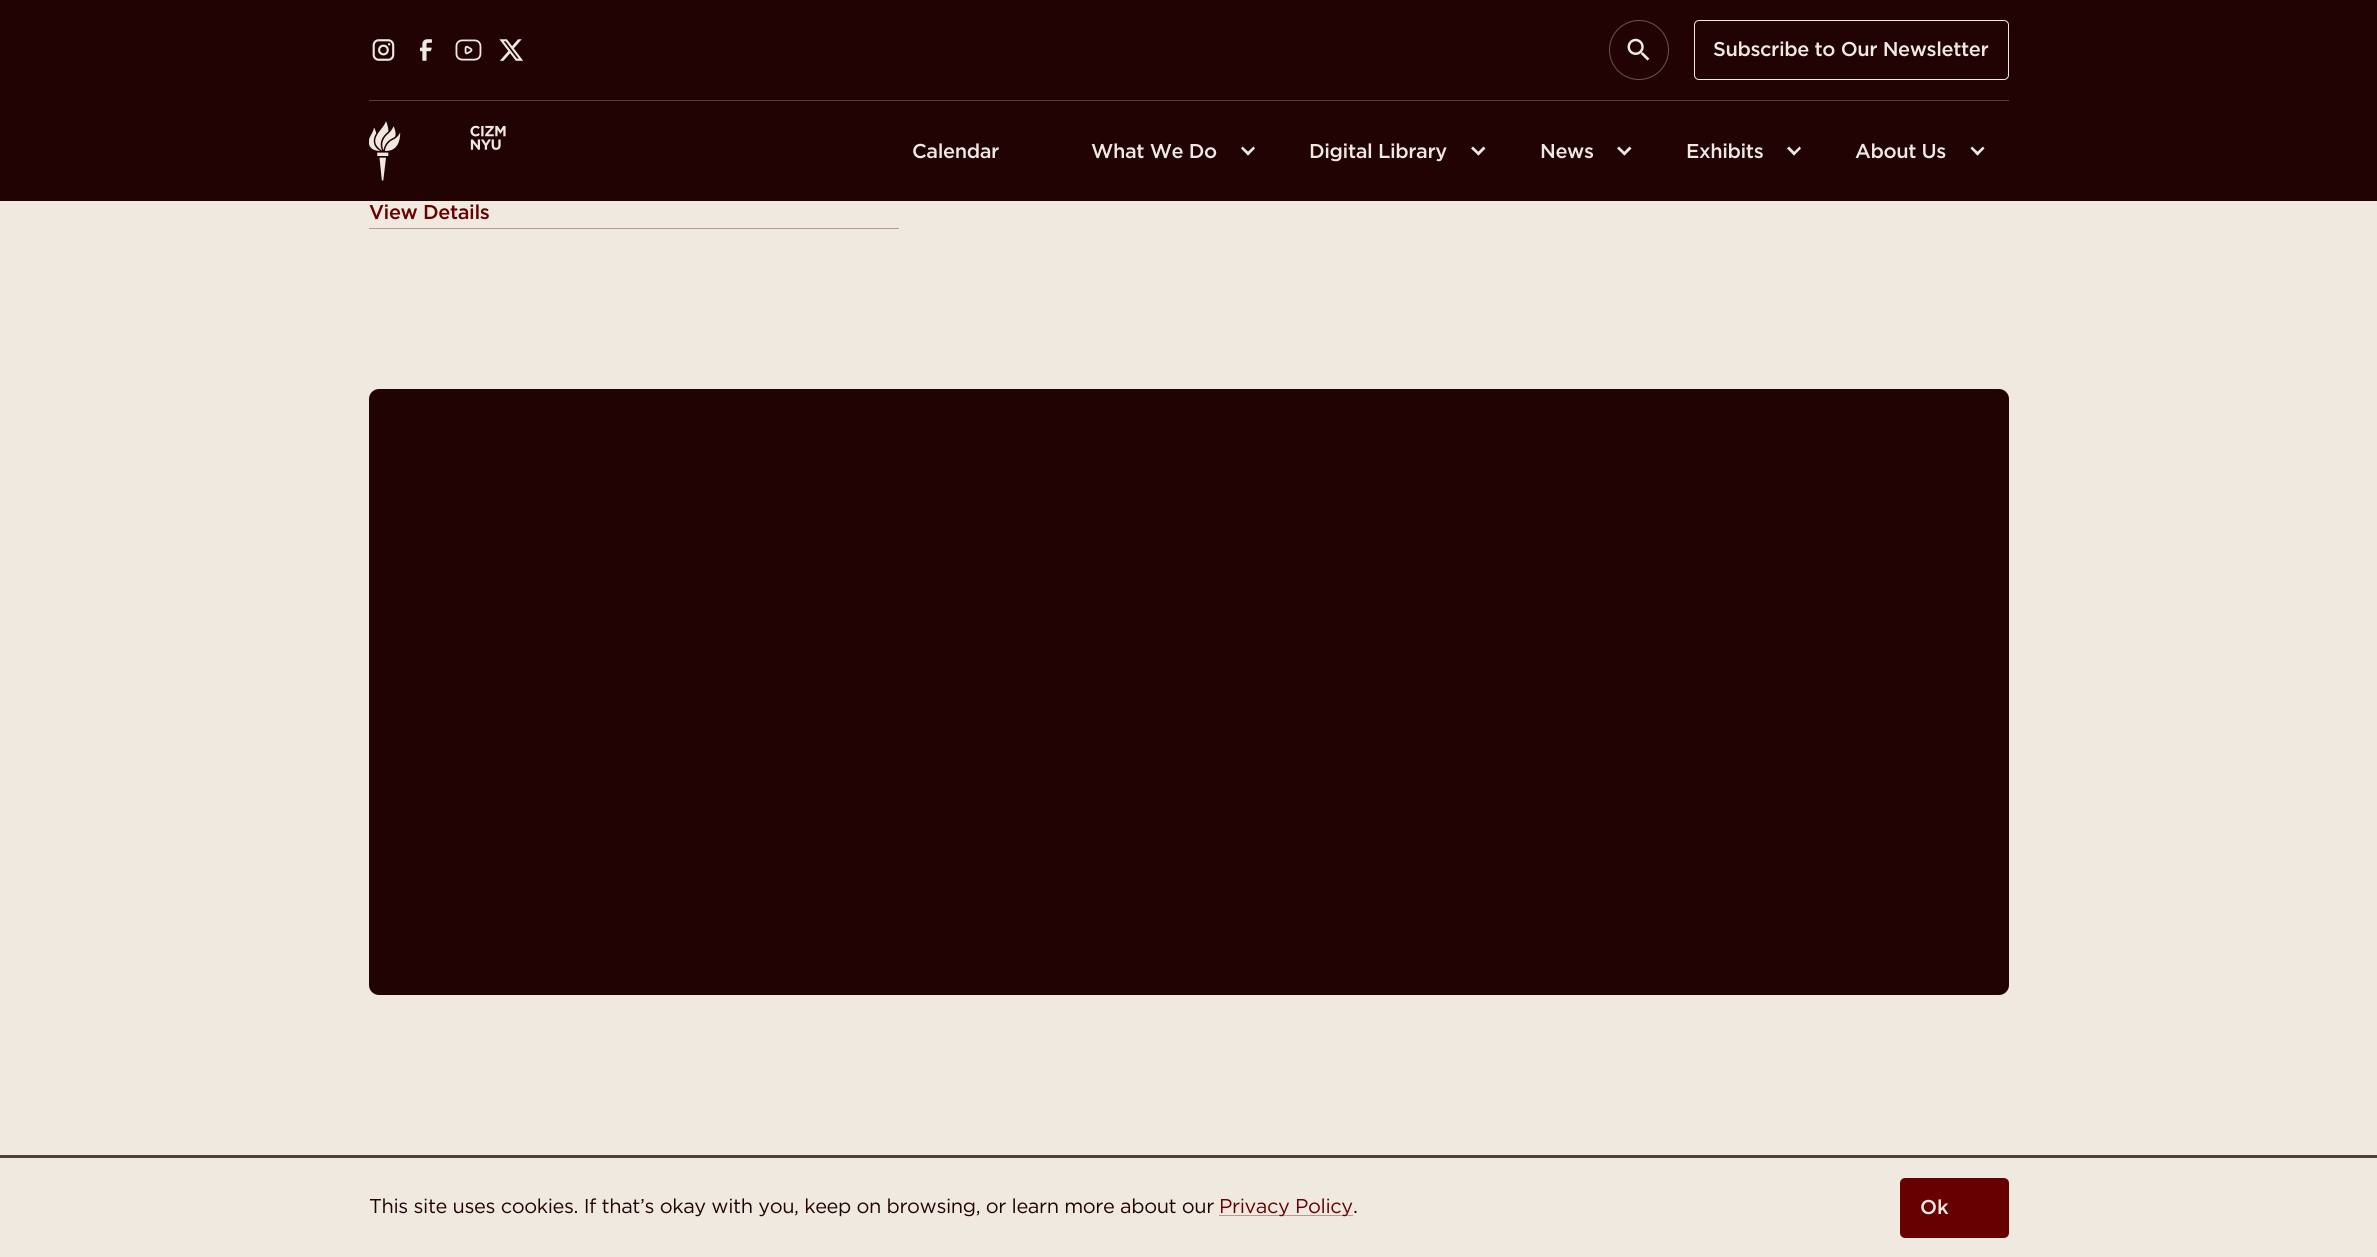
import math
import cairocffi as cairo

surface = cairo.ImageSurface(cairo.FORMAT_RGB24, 2377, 1257)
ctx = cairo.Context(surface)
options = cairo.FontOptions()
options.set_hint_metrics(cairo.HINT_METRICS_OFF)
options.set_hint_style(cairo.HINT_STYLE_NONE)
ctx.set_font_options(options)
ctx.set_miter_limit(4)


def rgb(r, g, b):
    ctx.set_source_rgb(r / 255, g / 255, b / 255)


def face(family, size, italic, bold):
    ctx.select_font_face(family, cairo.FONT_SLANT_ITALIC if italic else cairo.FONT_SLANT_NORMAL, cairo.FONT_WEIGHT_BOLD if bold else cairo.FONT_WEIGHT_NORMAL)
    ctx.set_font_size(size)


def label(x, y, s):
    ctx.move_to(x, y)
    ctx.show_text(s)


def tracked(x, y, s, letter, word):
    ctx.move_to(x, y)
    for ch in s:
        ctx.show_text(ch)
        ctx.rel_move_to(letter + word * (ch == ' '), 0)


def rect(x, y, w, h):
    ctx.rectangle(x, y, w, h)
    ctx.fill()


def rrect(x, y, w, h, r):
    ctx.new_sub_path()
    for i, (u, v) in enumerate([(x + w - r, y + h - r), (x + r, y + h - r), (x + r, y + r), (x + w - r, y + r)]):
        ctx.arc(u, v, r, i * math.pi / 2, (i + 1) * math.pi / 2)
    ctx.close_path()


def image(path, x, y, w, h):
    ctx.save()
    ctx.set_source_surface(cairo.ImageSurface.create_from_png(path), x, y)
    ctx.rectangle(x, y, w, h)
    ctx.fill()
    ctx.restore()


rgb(239, 233, 223)
ctx.paint()
rgb(33, 3, 3)
rect(0, 0, 2377, 201)
rgb(85, 61, 58)
rect(369, 100, 1640, 1)
image('image0.png', 372, 39, 23, 22)
image('image1.png', 419, 39, 13, 22)
image('image2.png', 455, 39, 27, 22)
image('image3.png', 499, 39, 25, 22)
image('image4.png', 1609, 20, 60, 60)
rrect(1694.5, 20.5, 314, 59, 4.5)
rgb(239, 233, 223)
ctx.set_line_width(1)
ctx.stroke()
face('Gotham Medium', 20, 0, 0)
tracked(1713, 56, 'Subscribe to Our Newsletter', -0.4, 0)
image('image5.png', 369, 121, 137, 60)
tracked(912, 158, 'Calendar', -0.4, 0)
tracked(1091, 158, 'What We Do', -0.4, 0)
ctx.new_path()
ctx.move_to(1253.5, 146.5)
ctx.line_to(1255, 148.5)
ctx.line_to(1248, 155.5)
ctx.line_to(1246, 153.5)
ctx.close_path()
ctx.fill()
ctx.new_path()
ctx.move_to(1242.5, 146.5)
ctx.line_to(1250, 153.5)
ctx.line_to(1248, 155.5)
ctx.line_to(1241, 148.5)
ctx.close_path()
ctx.fill()
tracked(1309, 158, 'Digital Library', -0.4, 0)
ctx.new_path()
ctx.move_to(1483.5, 146.5)
ctx.line_to(1485.5, 148.5)
ctx.line_to(1478.5, 155.5)
ctx.line_to(1476.5, 153.5)
ctx.close_path()
ctx.fill()
ctx.new_path()
ctx.move_to(1473, 146.5)
ctx.line_to(1480, 153.5)
ctx.line_to(1478.5, 155.5)
ctx.line_to(1471, 148.5)
ctx.close_path()
ctx.fill()
tracked(1540, 158, 'News', -0.4, 0)
ctx.new_path()
ctx.move_to(1629.5, 146.5)
ctx.line_to(1631.5, 148.5)
ctx.line_to(1624.5, 155.5)
ctx.line_to(1622.5, 153.5)
ctx.close_path()
ctx.fill()
ctx.new_path()
ctx.move_to(1619, 146.5)
ctx.line_to(1626, 153.5)
ctx.line_to(1624.5, 155.5)
ctx.line_to(1617, 148.5)
ctx.close_path()
ctx.fill()
tracked(1686, 158, 'Exhibits', -0.4, 0)
ctx.new_path()
ctx.move_to(1799.5, 146.5)
ctx.line_to(1801, 148.5)
ctx.line_to(1794, 155.5)
ctx.line_to(1792.5, 153.5)
ctx.close_path()
ctx.fill()
ctx.new_path()
ctx.move_to(1789, 146.5)
ctx.line_to(1796, 153.5)
ctx.line_to(1794, 155.5)
ctx.line_to(1787, 148.5)
ctx.close_path()
ctx.fill()
tracked(1855, 158, 'About Us', -0.4, 0)
ctx.new_path()
ctx.move_to(1983, 146.5)
ctx.line_to(1984.5, 148.5)
ctx.line_to(1977.5, 155.5)
ctx.line_to(1975.5, 153.5)
ctx.close_path()
ctx.fill()
ctx.new_path()
ctx.move_to(1972, 146.5)
ctx.line_to(1979.5, 153.5)
ctx.line_to(1977.5, 155.5)
ctx.line_to(1970.5, 148.5)
ctx.close_path()
ctx.fill()
rgb(191, 151, 145)
rect(369, 228, 530, 1)
rgb(103, 0, 1)
tracked(369, 219, 'View Details', -0.4, 0)
rgb(33, 3, 3)
rrect(369, 389, 1640, 606, 10)
ctx.fill()
rgb(84, 61, 58)
rect(0, 1155, 2377, 3)
face('Gotham', 20, 0, 0)
rgb(33, 3, 3)
tracked(369, 1213, 'This site uses cookies. If that’s okay with you, keep on browsing, or learn more about our', -0.4, 0)
rgb(191, 151, 145)
rect(1219, 1215, 134, 1)
rgb(103, 0, 1)
tracked(1219, 1213, 'Privacy Policy', -0.4, 0)
rgb(33, 3, 3)
tracked(1353, 1213, '.', -0.4, 0)
rgb(103, 0, 1)
rrect(1901.5, 1179.5, 106, 57, 3.5)
ctx.fill_preserve()
ctx.set_line_width(3)
ctx.stroke()
face('Gotham Medium', 20, 0, 0)
rgb(239, 233, 223)
label(1920, 1214, 'Ok')
surface.write_to_png('render.png')
